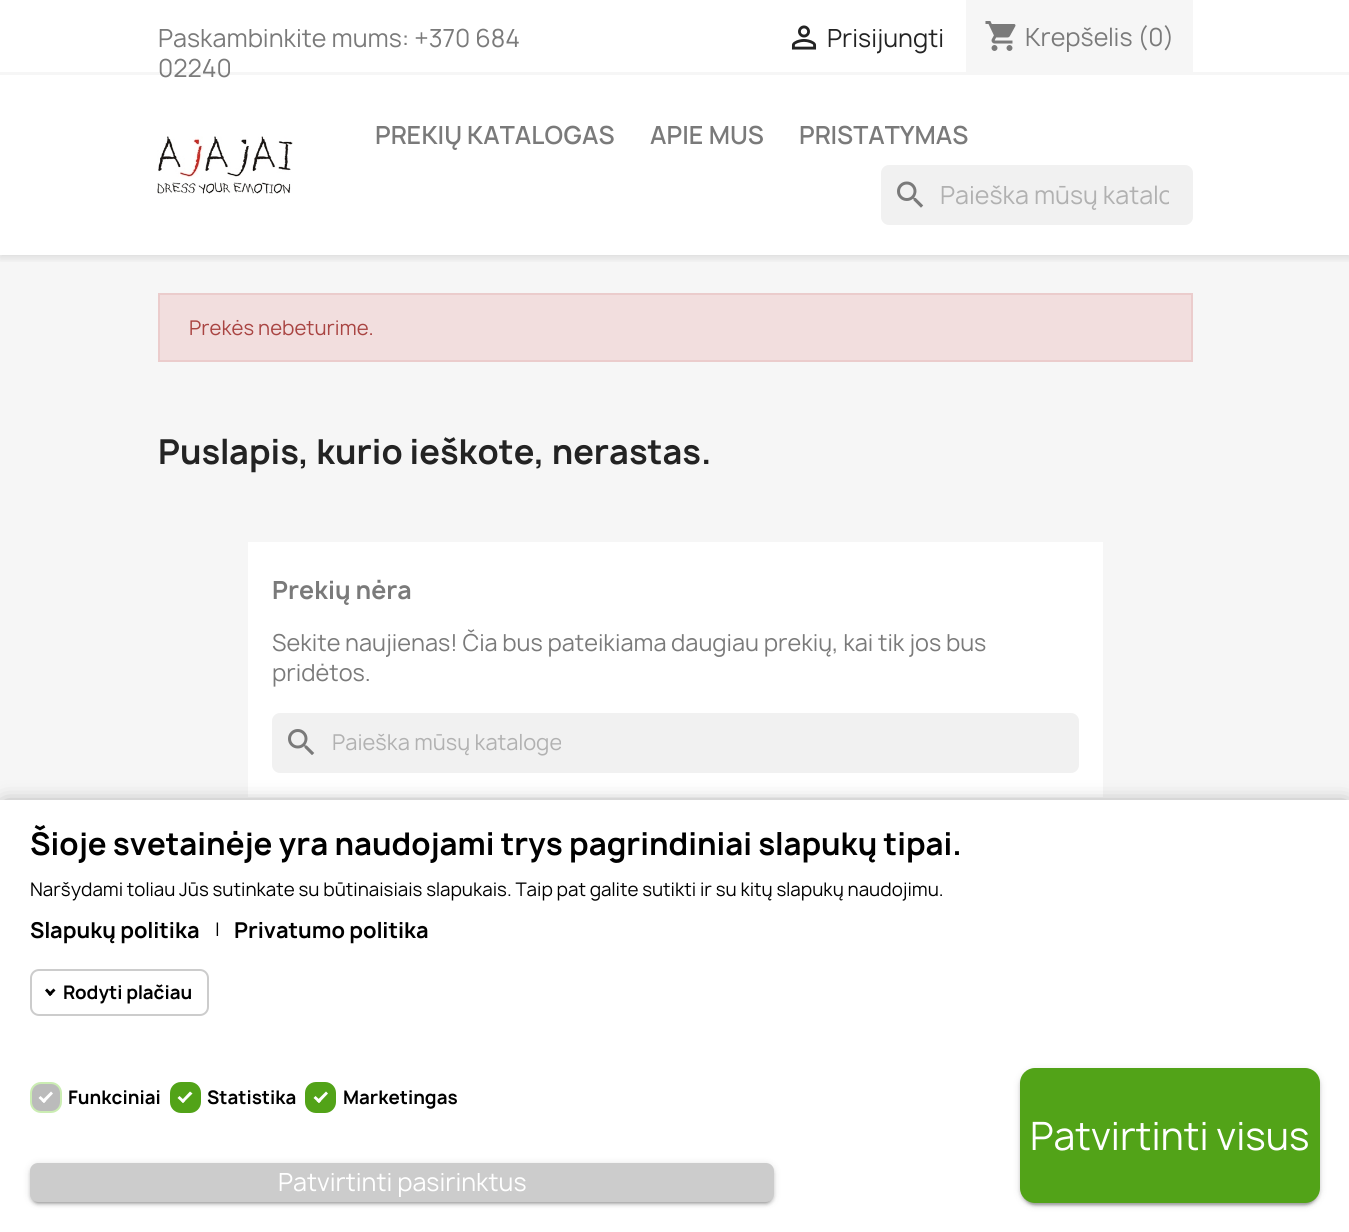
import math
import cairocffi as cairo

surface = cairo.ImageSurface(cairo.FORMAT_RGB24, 1349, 1232)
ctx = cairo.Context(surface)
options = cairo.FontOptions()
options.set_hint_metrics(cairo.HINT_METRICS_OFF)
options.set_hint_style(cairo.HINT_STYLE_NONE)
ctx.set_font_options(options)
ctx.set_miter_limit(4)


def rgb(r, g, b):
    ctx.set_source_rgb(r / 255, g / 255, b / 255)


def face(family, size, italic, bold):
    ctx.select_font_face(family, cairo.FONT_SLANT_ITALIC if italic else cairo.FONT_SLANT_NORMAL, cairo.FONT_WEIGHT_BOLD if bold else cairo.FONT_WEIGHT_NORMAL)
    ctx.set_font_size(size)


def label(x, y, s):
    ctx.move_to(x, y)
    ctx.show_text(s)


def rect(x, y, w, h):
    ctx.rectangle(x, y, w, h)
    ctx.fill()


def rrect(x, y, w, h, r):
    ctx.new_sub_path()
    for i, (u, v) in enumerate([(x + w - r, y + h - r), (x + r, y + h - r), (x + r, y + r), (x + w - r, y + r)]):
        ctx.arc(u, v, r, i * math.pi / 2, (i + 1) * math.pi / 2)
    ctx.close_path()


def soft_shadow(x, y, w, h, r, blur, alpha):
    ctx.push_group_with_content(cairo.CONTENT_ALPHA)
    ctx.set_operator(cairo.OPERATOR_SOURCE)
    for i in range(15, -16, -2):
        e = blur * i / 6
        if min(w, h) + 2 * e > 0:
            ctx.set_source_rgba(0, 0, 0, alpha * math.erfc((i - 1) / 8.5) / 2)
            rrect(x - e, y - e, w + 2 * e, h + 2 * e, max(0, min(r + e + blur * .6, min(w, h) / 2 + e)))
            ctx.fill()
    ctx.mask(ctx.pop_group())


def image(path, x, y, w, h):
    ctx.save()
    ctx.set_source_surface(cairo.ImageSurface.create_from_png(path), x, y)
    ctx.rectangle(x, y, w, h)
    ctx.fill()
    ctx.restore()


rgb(255, 255, 255)
ctx.paint()
rgb(246, 246, 246)
rect(0, 255, 1349, 545)
ctx.save()
ctx.rectangle(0, 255, 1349, 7)
ctx.clip()
rgb(0, 0, 0)
soft_shadow(0, 3, 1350, 255, 0, 4, 0.11)
ctx.restore()
rect(0, 72, 1349, 3)
face('Manrope', 24, 0, 0)
rgb(122, 122, 122)
label(158, 47, 'Paskambinkite mums: +370 684')
label(158, 77, '02240')
image('image0.png', 791, 25, 26, 25)
rgb(35, 35, 35)
label(827, 47, 'Prisijungti')
rgb(246, 246, 246)
rect(966, 0, 227, 72)
image('image1.png', 985, 21, 31, 30)
rgb(122, 122, 122)
label(1025, 46, 'Krepšelis (0)')
image('image2.png', 157, 136, 136, 58)
face('Manrope SemiBold', 24, 0, 0)
label(375, 144, 'PREKIŲ KATALOGAS')
label(650, 144, 'APIE MUS')
label(799, 144, 'PRISTATYMAS')
rgb(241, 241, 241)
rrect(881, 165, 312, 60, 8)
ctx.fill()
image('image3.png', 897, 181, 27, 27)
ctx.save()
ctx.rectangle(941, 176, 228, 40)
ctx.clip()
face('Manrope', 24, 0, 0)
rgb(177, 177, 177)
label(940, 204, 'Paieška mūsų katalo')
ctx.restore()
rgb(242, 222, 222)
ctx.rectangle(159, 294, 1033, 67)
ctx.fill_preserve()
rgb(235, 204, 204)
ctx.stroke()
face('Manrope', 19.5, 0, 0)
rgb(169, 68, 66)
label(189, 335, 'Prekės nebeturime.')
face('Manrope', 33, 0, 1)
rgb(35, 35, 35)
label(158, 464, 'Puslapis, kurio ieškote, nerastas.')
rgb(255, 255, 255)
rect(248, 542, 855, 255)
face('Manrope', 24, 0, 1)
rgb(122, 122, 122)
label(272, 599, 'Prekių nėra')
face('Manrope', 22.5, 0, 0)
label(272, 651, 'Sekite naujienas! Čia bus pateikiama daugiau prekių, kai tik jos bus')
label(272, 681, 'pridėtos.')
rgb(241, 241, 241)
rrect(272, 713, 807, 60, 8)
ctx.fill()
image('image4.png', 288, 729, 27, 26)
face('Manrope', 21, 0, 0)
rgb(177, 177, 177)
label(332, 750, 'Paieška mūsų kataloge')
rgb(0, 0, 0)
soft_shadow(5, 807, 1341, 425, 0, 11, 0.5)
rgb(255, 255, 255)
rect(0, 800, 1349, 432)
face('Manrope', 30, 0, 1)
rgb(0, 0, 0)
label(30, 855, 'Šioje svetainėje yra naudojami trys pagrindiniai slapukų tipai.')
face('Manrope', 18, 0, 0)
label(30, 896, 'Naršydami toliau Jūs sutinkate su būtinaisiais slapukais. Taip pat galite sutikti ir su kitų slapukų naudojimu.')
face('Manrope', 21, 0, 1)
label(30, 938, 'Slapukų politika')
face('Manrope', 18, 0, 0)
label(215, 936, '|')
face('Manrope', 21, 0, 1)
label(234, 938, 'Privatumo politika')
rrect(31, 970, 177, 45, 8)
rgb(204, 204, 204)
ctx.stroke()
rgb(0, 0, 0)
ctx.new_path()
ctx.move_to(55.5, 990.5)
ctx.line_to(50, 996)
ctx.line_to(48, 994)
ctx.line_to(53.5, 988.5)
ctx.close_path()
ctx.fill()
ctx.new_path()
ctx.move_to(52.5, 994)
ctx.line_to(50, 996)
ctx.line_to(45, 990.5)
ctx.line_to(47, 988.5)
ctx.close_path()
ctx.fill()
face('Manrope', 18, 0, 1)
label(63, 999, 'Rodyti plačiau')
rgb(187, 187, 187)
rrect(31, 1083, 30, 29, 10)
ctx.fill_preserve()
rgb(203, 237, 179)
ctx.stroke()
rgb(255, 255, 255)
ctx.new_path()
ctx.move_to(51, 1091.5)
ctx.line_to(53, 1093.5)
ctx.line_to(44, 1103)
ctx.line_to(41.5, 1101)
ctx.close_path()
ctx.fill()
ctx.new_path()
ctx.move_to(40.5, 1096)
ctx.line_to(46, 1101)
ctx.line_to(44, 1103)
ctx.line_to(38.5, 1098)
ctx.close_path()
ctx.fill()
rgb(0, 0, 0)
label(68, 1104, 'Funkciniai')
rgb(82, 163, 24)
rrect(171, 1083, 29, 29, 10)
ctx.fill_preserve()
ctx.stroke()
rgb(255, 255, 255)
ctx.new_path()
ctx.move_to(190, 1091.5)
ctx.line_to(192.5, 1093.5)
ctx.line_to(183, 1103)
ctx.line_to(181, 1101)
ctx.close_path()
ctx.fill()
ctx.new_path()
ctx.move_to(179.5, 1096)
ctx.line_to(185, 1101)
ctx.line_to(183, 1103)
ctx.line_to(177.5, 1098)
ctx.close_path()
ctx.fill()
rgb(0, 0, 0)
label(207, 1104, 'Statistika')
rgb(82, 163, 24)
rrect(306, 1083, 29, 29, 10)
ctx.fill_preserve()
ctx.stroke()
rgb(255, 255, 255)
ctx.new_path()
ctx.move_to(326, 1091.5)
ctx.line_to(328, 1093.5)
ctx.line_to(319, 1103)
ctx.line_to(316.5, 1101)
ctx.close_path()
ctx.fill()
ctx.new_path()
ctx.move_to(315.5, 1096)
ctx.line_to(321, 1101)
ctx.line_to(319, 1103)
ctx.line_to(313.5, 1098)
ctx.close_path()
ctx.fill()
rgb(0, 0, 0)
label(343, 1104, 'Marketingas')
rgb(0, 0, 0)
soft_shadow(30, 1164, 744, 39, 8, 4, 0.12)
soft_shadow(30, 1166, 744, 39, 8, 1.5, 0.14)
soft_shadow(33, 1170, 738, 33, 5, 1, 0.2)
rgb(204, 204, 204)
rrect(30, 1163, 744, 39, 8)
ctx.fill()
face('Manrope', 24, 0, 0)
rgb(255, 255, 255)
label(278, 1191, 'Patvirtinti pasirinktus')
rgb(0, 0, 0)
soft_shadow(1020, 1070, 300, 135, 15, 4, 0.12)
soft_shadow(1020, 1071, 300, 135, 15, 1.5, 0.14)
soft_shadow(1023, 1076, 294, 129, 12, 1, 0.2)
rgb(82, 163, 24)
rrect(1020, 1068, 300, 135, 15)
ctx.fill()
face('Manrope', 37.5, 0, 0)
rgb(255, 255, 255)
label(1030, 1150, 'Patvirtinti visus')
surface.write_to_png('render.png')
